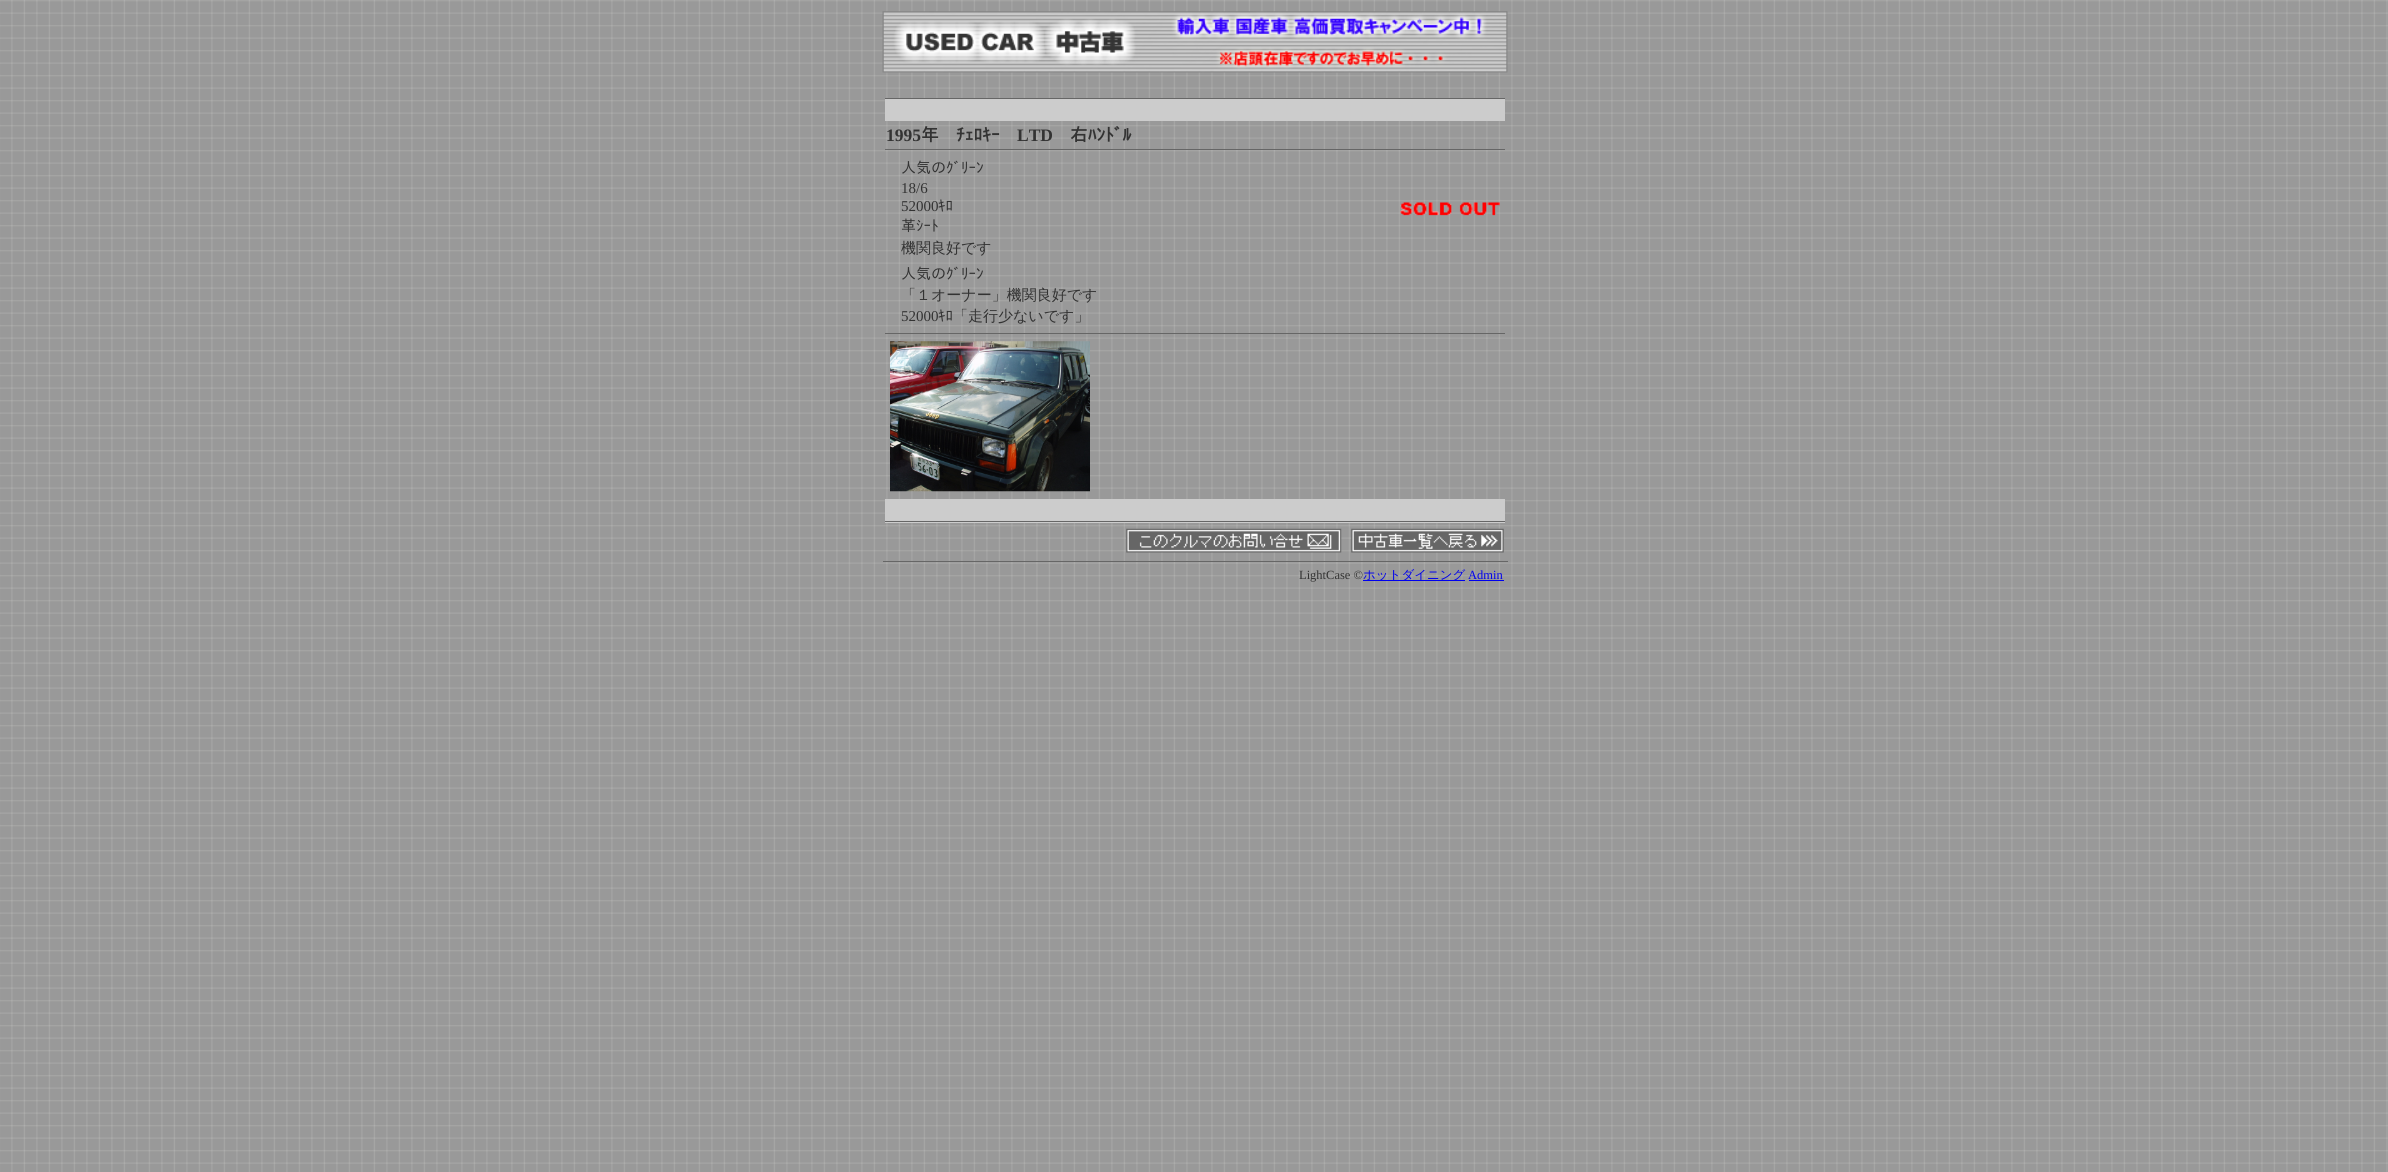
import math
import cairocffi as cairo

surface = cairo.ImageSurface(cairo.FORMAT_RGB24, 2388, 1172)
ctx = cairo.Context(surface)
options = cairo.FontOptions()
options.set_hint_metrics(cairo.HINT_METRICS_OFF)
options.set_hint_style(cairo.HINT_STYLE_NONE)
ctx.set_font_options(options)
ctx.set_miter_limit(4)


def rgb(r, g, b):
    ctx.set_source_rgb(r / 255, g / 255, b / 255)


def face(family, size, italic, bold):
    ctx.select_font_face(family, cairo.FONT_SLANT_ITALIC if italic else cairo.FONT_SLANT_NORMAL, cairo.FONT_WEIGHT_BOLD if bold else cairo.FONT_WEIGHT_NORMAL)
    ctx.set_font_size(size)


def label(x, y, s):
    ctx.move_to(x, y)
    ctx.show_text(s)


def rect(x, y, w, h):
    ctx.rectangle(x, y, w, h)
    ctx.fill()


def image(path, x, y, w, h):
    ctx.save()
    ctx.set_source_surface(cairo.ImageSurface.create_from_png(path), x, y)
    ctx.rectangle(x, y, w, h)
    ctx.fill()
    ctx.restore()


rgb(255, 255, 255)
ctx.paint()
image('image0.png', 0, 0, 2388, 1172)
image('image1.png', 882, 11, 626, 62)
rgb(204, 204, 204)
rect(885, 99, 620, 22)
rgb(102, 102, 102)
rect(885, 98, 620, 1)
rect(885, 149, 620, 1)
face('Liberation Serif', 17.5, 0, 1)
rgb(51, 51, 51)
label(886, 141, '1995')
face('IPAGothic', 17.5, 0, 1)
label(921, 141, '年　ﾁｪﾛｷｰ')
face('Liberation Serif', 17.5, 0, 1)
label(1017, 141, 'LTD')
face('IPAGothic', 17.5, 0, 1)
label(1070, 141, '右ﾊﾝﾄﾞﾙ')
rgb(102, 102, 102)
rect(885, 333, 620, 1)
face('IPAGothic', 15, 0, 0)
rgb(51, 51, 51)
label(901, 173, '人気のｸﾞﾘｰﾝ')
face('Liberation Serif', 15, 0, 0)
label(901, 193, '18/6')
label(901, 211, '52000')
face('IPAGothic', 15, 0, 0)
label(938, 211, 'ｷﾛ')
label(901, 231, '革ｼｰﾄ')
face('WenQuanYi Zen Hei Medium', 15, 0, 0)
label(901, 253, '機関良好です')
image('image2.png', 1400, 202, 100, 14)
face('IPAGothic', 15, 0, 0)
label(901, 279, '人気のｸﾞﾘｰﾝ')
face('WenQuanYi Zen Hei Medium', 15, 0, 0)
label(901, 300, '「１オーナー」機関良好です')
face('Liberation Serif', 15, 0, 0)
label(901, 321, '52000')
face('IPAGothic', 15, 0, 0)
label(938, 321, 'ｷﾛ')
face('WenQuanYi Zen Hei Medium', 15, 0, 0)
label(953, 321, '「走行少ないです」')
image('image3.png', 890, 341, 200, 151)
rgb(204, 204, 204)
rect(885, 499, 620, 24)
rgb(102, 102, 102)
rect(885, 521, 620, 1)
image('image4.png', 1126, 528, 216, 25)
image('image5.png', 1351, 528, 153, 25)
rect(883, 561, 625, 1)
face('Liberation Serif', 12.5, 0, 0)
rgb(51, 51, 51)
label(1299, 579, 'LightCase ©')
rgb(0, 0, 238)
rect(1363, 580, 102, 1)
face('WenQuanYi Zen Hei Medium', 12.5, 0, 0)
label(1363, 579, 'ホットダイニング')
face('Liberation Serif', 12.5, 0, 0)
label(1468, 579, 'Admin')
rect(1469, 580, 35, 1)
surface.write_to_png('render.png')
